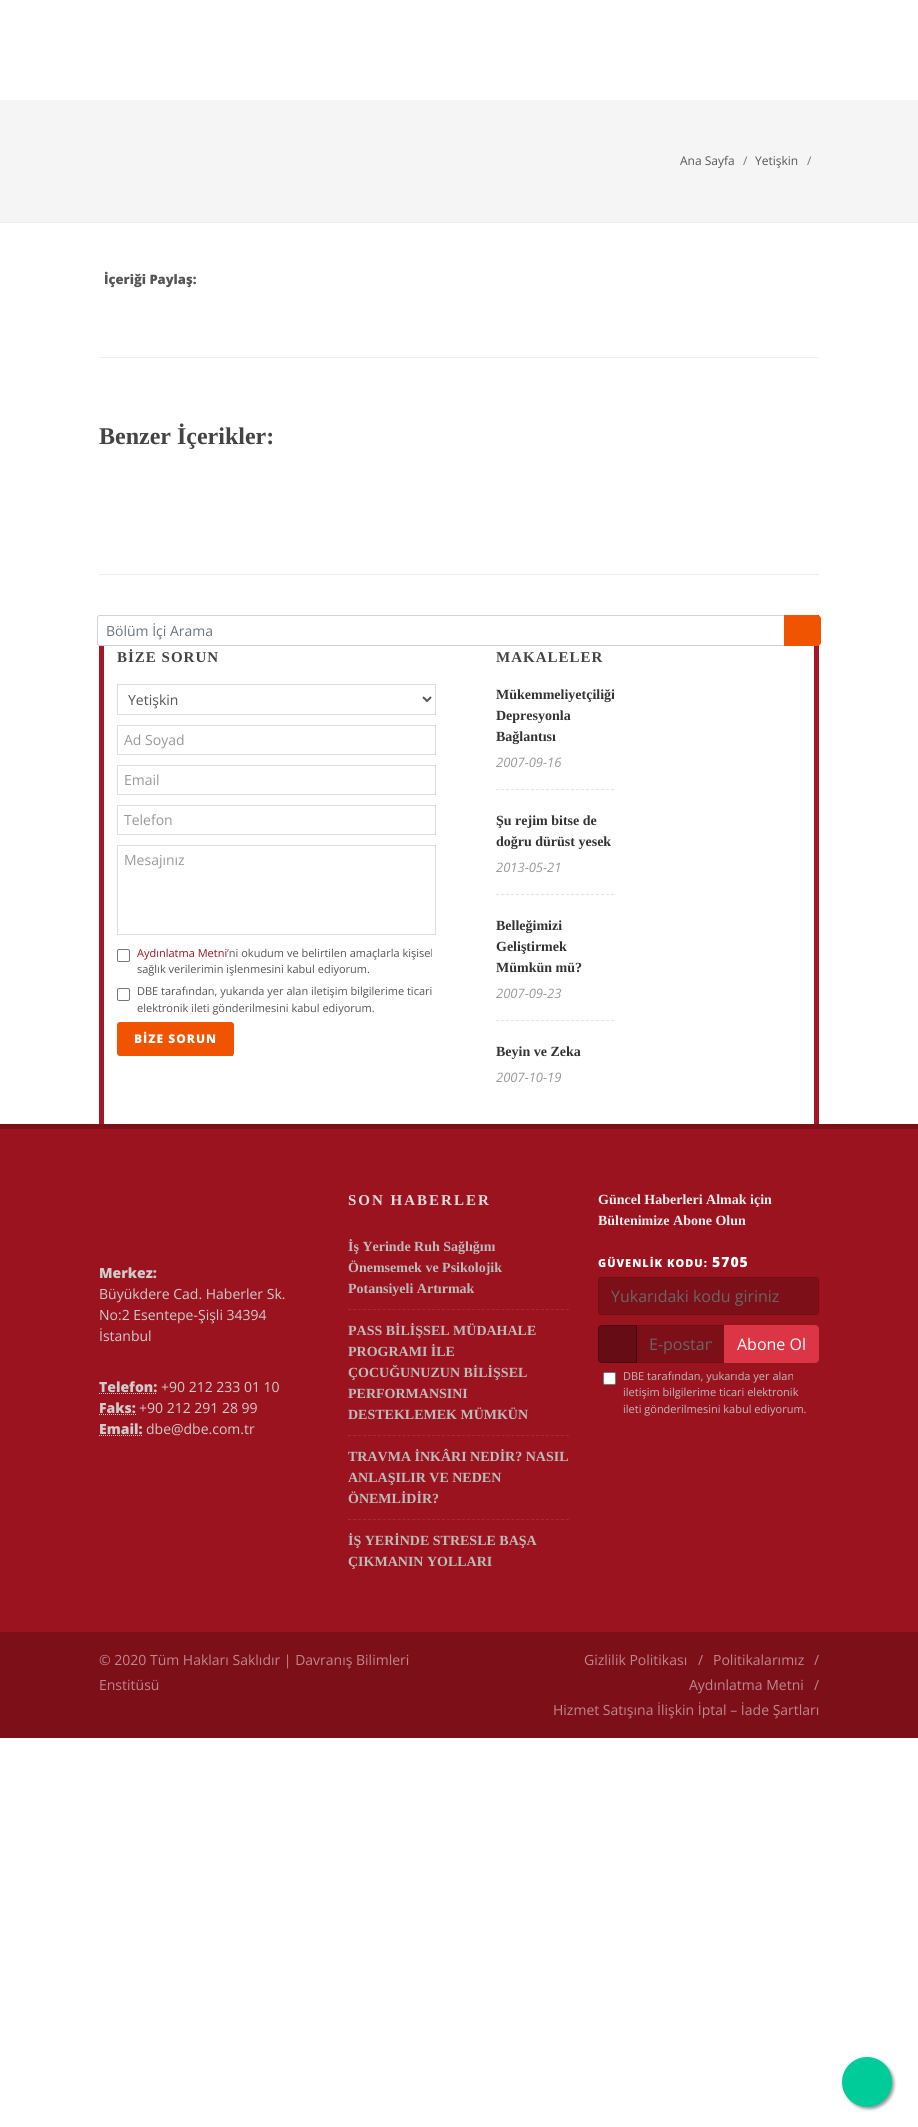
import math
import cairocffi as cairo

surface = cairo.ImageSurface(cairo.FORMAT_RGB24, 918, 2127)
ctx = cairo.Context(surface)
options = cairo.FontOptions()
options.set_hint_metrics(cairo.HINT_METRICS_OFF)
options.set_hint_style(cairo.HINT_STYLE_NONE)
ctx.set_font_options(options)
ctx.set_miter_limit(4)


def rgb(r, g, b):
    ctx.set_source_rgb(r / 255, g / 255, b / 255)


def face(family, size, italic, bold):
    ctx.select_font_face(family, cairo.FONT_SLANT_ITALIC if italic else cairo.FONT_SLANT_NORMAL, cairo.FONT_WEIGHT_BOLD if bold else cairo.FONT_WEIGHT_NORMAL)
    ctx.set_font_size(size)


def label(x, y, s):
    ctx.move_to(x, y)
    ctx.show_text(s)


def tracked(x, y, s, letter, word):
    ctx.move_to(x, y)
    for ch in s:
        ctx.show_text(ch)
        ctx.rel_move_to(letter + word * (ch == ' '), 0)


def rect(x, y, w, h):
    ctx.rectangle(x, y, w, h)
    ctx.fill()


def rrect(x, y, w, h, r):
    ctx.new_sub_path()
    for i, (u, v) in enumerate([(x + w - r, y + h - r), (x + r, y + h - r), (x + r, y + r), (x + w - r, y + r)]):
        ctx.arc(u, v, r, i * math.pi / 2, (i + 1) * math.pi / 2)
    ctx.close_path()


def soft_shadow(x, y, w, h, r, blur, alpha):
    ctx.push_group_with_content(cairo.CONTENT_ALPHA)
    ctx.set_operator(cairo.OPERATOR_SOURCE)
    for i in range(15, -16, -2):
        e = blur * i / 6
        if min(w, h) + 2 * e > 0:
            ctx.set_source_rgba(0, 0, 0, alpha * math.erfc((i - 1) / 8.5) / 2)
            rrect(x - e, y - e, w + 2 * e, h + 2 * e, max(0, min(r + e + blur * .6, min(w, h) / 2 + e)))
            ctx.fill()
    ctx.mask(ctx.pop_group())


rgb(255, 255, 255)
ctx.paint()
rgb(245, 245, 245)
rect(0, 100, 918, 122)
rgb(238, 238, 238)
rect(0, 222, 918, 1)
face('Open Sans', 12, 0, 0)
rgb(85, 85, 85)
label(680, 165, 'Ana Sayfa')
rgb(108, 117, 125)
label(743, 165, '/')
rgb(85, 85, 85)
label(755, 165, 'Yetişkin')
rgb(108, 117, 125)
label(807, 165, '/')
rgb(238, 238, 238)
rect(99, 574, 720, 1)
face('Open Sans ExtraBold', 13, 0, 0)
rgb(85, 85, 85)
label(104, 284, 'İçeriği Paylaş:')
rgb(238, 238, 238)
rect(99, 357, 720, 1)
face('Liberation Serif', 24, 0, 1)
rgb(68, 68, 68)
label(99, 444, 'Benzer İçerikler:')
rgb(162, 24, 39)
rect(814, 615, 5, 509)
rect(99, 615, 5, 509)
rgb(255, 255, 255)
ctx.new_path()
ctx.move_to(100, 615.5)
ctx.line_to(784.5, 615.5)
ctx.line_to(784.5, 645.5)
ctx.line_to(100, 645.5)
ctx.curve_to(98.5, 645.5, 97.5, 644.5, 97.5, 643)
ctx.line_to(97.5, 618)
ctx.curve_to(97.5, 616.5, 98.5, 615.5, 100, 615.5)
ctx.close_path()
ctx.fill_preserve()
rgb(206, 212, 218)
ctx.set_line_width(1)
ctx.stroke()
face('Open Sans', 14, 0, 0)
rgb(108, 117, 125)
label(106, 636, 'Bölüm İçi Arama')
rgb(240, 84, 1)
ctx.new_path()
ctx.move_to(784.5, 615.5)
ctx.line_to(817, 615.5)
ctx.curve_to(819, 615.5, 820.5, 617, 820.5, 619)
ctx.line_to(820.5, 642)
ctx.curve_to(820.5, 644, 819, 645.5, 817, 645.5)
ctx.line_to(784.5, 645.5)
ctx.close_path()
ctx.fill_preserve()
ctx.stroke()
face('Liberation Serif', 15, 0, 1)
rgb(68, 68, 68)
tracked(117, 662, 'BİZE SORUN', 1, 0)
ctx.rectangle(117.5, 684.5, 318, 30)
rgb(221, 221, 221)
ctx.stroke()
ctx.new_path()
ctx.move_to(423, 697)
ctx.line_to(427, 701)
ctx.line_to(431, 697)
rgb(85, 85, 85)
ctx.set_line_width(2)
ctx.stroke()
face('Open Sans', 14, 0, 0)
label(128, 705, 'Yetişkin')
ctx.rectangle(117.5, 725.5, 318, 29)
rgb(221, 221, 221)
ctx.set_line_width(1)
ctx.stroke()
rgb(153, 153, 153)
label(124, 745, 'Ad Soyad')
ctx.rectangle(117.5, 765.5, 318, 29)
rgb(221, 221, 221)
ctx.stroke()
rgb(153, 153, 153)
label(124, 785, 'Email')
ctx.rectangle(117.5, 805.5, 318, 29)
rgb(221, 221, 221)
ctx.stroke()
rgb(153, 153, 153)
label(124, 825, 'Telefon')
ctx.rectangle(117.5, 845.5, 318, 89)
rgb(221, 221, 221)
ctx.stroke()
rgb(153, 153, 153)
label(124, 865, 'Mesajınız')
rrect(117.5, 949.5, 12, 12, 1.5)
rgb(118, 118, 118)
ctx.stroke()
face('Open Sans', 11, 0, 0)
rgb(155, 19, 30)
label(137, 957, 'Aydınlatma Metni')
rgb(85, 85, 85)
label(227, 957, '’ni okudum ve belirtilen amaçlarla kişisel')
label(137, 973, 'sağlık verilerimin işlenmesini kabul ediyorum.')
rrect(117.5, 988.5, 12, 12, 1.5)
rgb(118, 118, 118)
ctx.stroke()
rgb(85, 85, 85)
label(137, 995, 'DBE tarafından, yukarıda yer alan iletişim bilgilerime ticari')
label(137, 1012, 'elektronik ileti gönderilmesini kabul ediyorum.')
rgb(240, 84, 1)
rrect(117, 1022, 117, 34, 3)
ctx.fill()
rect(119, 1055, 114, 1)
face('Open Sans ExtraBold', 12, 0, 0)
rgb(255, 255, 255)
tracked(134, 1043, 'BİZE SORUN', 1, 0)
face('Liberation Serif', 15, 0, 1)
rgb(68, 68, 68)
tracked(496, 662, 'MAKALELER', 1, 0)
ctx.save()
ctx.rectangle(496, 684, 118, 85)
ctx.clip()
face('Liberation Serif', 14, 0, 1)
rgb(51, 51, 51)
label(496, 699, 'Mükemmeliyetçiliği')
ctx.restore()
face('Liberation Serif', 14, 0, 1)
rgb(51, 51, 51)
label(496, 720, 'Depresyonla')
label(496, 741, 'Bağlantısı')
face('Open Sans', 13, 1, 0)
rgb(153, 153, 153)
label(496, 767, '2007-09-16')
ctx.new_path()
ctx.move_to(496, 789.5)
ctx.line_to(614, 789.5)
rgb(229, 229, 229)
ctx.set_dash([3, 2])
ctx.stroke()
face('Liberation Serif', 14, 0, 1)
rgb(51, 51, 51)
label(496, 825, 'Şu rejim bitse de')
label(496, 846, 'doğru dürüst yesek')
face('Open Sans', 13, 1, 0)
rgb(153, 153, 153)
label(496, 872, '2013-05-21')
ctx.new_path()
ctx.move_to(496, 894.5)
ctx.line_to(614, 894.5)
rgb(229, 229, 229)
ctx.stroke()
face('Liberation Serif', 14, 0, 1)
rgb(51, 51, 51)
label(496, 930, 'Belleğimizi')
label(496, 951, 'Geliştirmek')
label(496, 972, 'Mümkün mü?')
face('Open Sans', 13, 1, 0)
rgb(153, 153, 153)
label(496, 998, '2007-09-23')
ctx.new_path()
ctx.move_to(496, 1020.5)
ctx.line_to(614, 1020.5)
rgb(229, 229, 229)
ctx.stroke()
face('Liberation Serif', 14, 0, 1)
rgb(51, 51, 51)
label(496, 1056, 'Beyin ve Zeka')
face('Open Sans', 13, 1, 0)
rgb(153, 153, 153)
label(496, 1082, '2007-10-19')
rgb(155, 19, 30)
rect(0, 1129, 918, 503)
rgb(124, 15, 24)
rect(0, 1124, 918, 5)
face('Open Sans ExtraBold', 14, 0, 0)
rgb(204, 204, 204)
label(99, 1278, 'Merkez:')
face('Open Sans', 14, 0, 0)
label(99, 1299, 'Büyükdere Cad. Haberler Sk.')
label(99, 1320, 'No:2 Esentepe-Şişli 34394')
label(99, 1341, 'İstanbul')
face('Open Sans ExtraBold', 14, 0, 0)
label(99, 1392, 'Telefon:')
ctx.new_path()
ctx.move_to(99, 1393.5)
ctx.line_to(157, 1393.5)
ctx.set_dash([1, 1])
ctx.stroke()
face('Open Sans', 14, 0, 0)
label(161, 1392, '+90 212 233 01 10')
face('Open Sans ExtraBold', 14, 0, 0)
label(99, 1413, 'Faks:')
ctx.new_path()
ctx.move_to(99, 1414.5)
ctx.line_to(136, 1414.5)
ctx.stroke()
face('Open Sans', 14, 0, 0)
label(139, 1413, '+90 212 291 28 99')
face('Open Sans ExtraBold', 14, 0, 0)
label(99, 1434, 'Email:')
ctx.new_path()
ctx.move_to(99, 1435.5)
ctx.line_to(142.5, 1435.5)
ctx.stroke()
face('Open Sans', 14, 0, 0)
label(146, 1434, 'dbe@dbe.com.tr')
face('Liberation Serif', 15, 0, 1)
rgb(221, 221, 221)
tracked(348, 1205, 'SON HABERLER', 2, 0)
face('Liberation Serif', 14, 0, 1)
rgb(187, 187, 187)
label(348, 1251, 'İş Yerinde Ruh Sağlığını')
label(348, 1272, 'Önemsemek ve Psikolojik')
label(348, 1293, 'Potansiyeli Artırmak')
ctx.new_path()
ctx.move_to(348, 1309.5)
ctx.line_to(569, 1309.5)
rgb(165, 43, 53)
ctx.set_dash([3, 1.95])
ctx.stroke()
rgb(187, 187, 187)
label(348, 1335, 'PASS BİLİŞSEL MÜDAHALE')
label(348, 1356, 'PROGRAMI İLE')
label(348, 1377, 'ÇOCUĞUNUZUN BİLİŞSEL')
label(348, 1398, 'PERFORMANSINI')
label(348, 1419, 'DESTEKLEMEK MÜMKÜN')
ctx.new_path()
ctx.move_to(348, 1435.5)
ctx.line_to(569, 1435.5)
rgb(165, 43, 53)
ctx.stroke()
rgb(187, 187, 187)
label(348, 1461, 'TRAVMA İNKÂRI NEDİR? NASIL')
label(348, 1482, 'ANLAŞILIR VE NEDEN')
label(348, 1503, 'ÖNEMLİDİR?')
ctx.new_path()
ctx.move_to(348, 1519.5)
ctx.line_to(569, 1519.5)
rgb(165, 43, 53)
ctx.stroke()
rgb(187, 187, 187)
label(348, 1545, 'İŞ YERİNDE STRESLE BAŞA')
label(348, 1566, 'ÇIKMANIN YOLLARI')
rgb(238, 238, 238)
label(598, 1204, 'Güncel Haberleri Almak için')
label(598, 1225, 'Bültenimize Abone Olun')
face('Open Sans ExtraBold', 11, 0, 0)
rgb(255, 255, 255)
tracked(598, 1267, 'GÜVENLİK KODU:', 1, 0)
face('Open Sans ExtraBold', 14, 0, 0)
tracked(712, 1267, '5705', 1, 0)
rgb(124, 15, 24)
rrect(599, 1278, 219, 36, 2)
ctx.fill()
rrect(598.5, 1277.5, 220, 37, 2.5)
ctx.set_source_rgba(0, 0, 0, 0.25)
ctx.set_dash([])
ctx.stroke()
face('Open Sans', 16, 0, 0)
rgb(102, 102, 102)
label(611, 1302, 'Yukarıdaki kodu giriniz')
rgb(101, 12, 20)
ctx.new_path()
ctx.move_to(602, 1325)
ctx.line_to(637, 1325)
ctx.line_to(637, 1363)
ctx.line_to(602, 1363)
ctx.curve_to(600, 1363, 598, 1361, 598, 1359)
ctx.line_to(598, 1329)
ctx.curve_to(598, 1327, 600, 1325, 602, 1325)
ctx.close_path()
ctx.fill()
ctx.new_path()
ctx.move_to(602, 1325.5)
ctx.line_to(636.5, 1325.5)
ctx.line_to(636.5, 1362.5)
ctx.line_to(602, 1362.5)
ctx.curve_to(600, 1362.5, 598.5, 1361, 598.5, 1359)
ctx.line_to(598.5, 1329)
ctx.curve_to(598.5, 1327, 600, 1325.5, 602, 1325.5)
ctx.close_path()
ctx.set_source_rgba(0, 0, 0, 0.25)
ctx.stroke()
rgb(124, 15, 24)
rect(637, 1326, 87, 36)
ctx.rectangle(636.5, 1325.5, 88, 37)
ctx.set_source_rgba(0, 0, 0, 0.25)
ctx.stroke()
ctx.save()
ctx.rectangle(649, 1333, 63, 22)
ctx.clip()
rgb(102, 102, 102)
label(649, 1350, 'E-postan')
ctx.restore()
rgb(220, 53, 69)
ctx.new_path()
ctx.move_to(724.5, 1325.5)
ctx.line_to(815, 1325.5)
ctx.curve_to(817, 1325.5, 818.5, 1327, 818.5, 1329)
ctx.line_to(818.5, 1359)
ctx.curve_to(818.5, 1361, 817, 1362.5, 815, 1362.5)
ctx.line_to(724.5, 1362.5)
ctx.close_path()
ctx.fill_preserve()
ctx.stroke()
rgb(255, 255, 255)
label(737, 1350, 'Abone Ol')
rrect(603.5, 1372.5, 12, 12, 1.5)
ctx.fill_preserve()
rgb(118, 118, 118)
ctx.stroke()
face('Open Sans', 11, 0, 0)
rgb(187, 187, 187)
label(623, 1380, 'DBE tarafından, yukarıda yer alan')
label(623, 1396, 'iletişim bilgilerime ticari elektronik')
label(623, 1413, 'ileti gönderilmesini kabul ediyorum.')
rgb(124, 15, 24)
rect(0, 1632, 918, 106)
face('Open Sans', 14, 0, 0)
rgb(190, 135, 140)
label(99, 1665, '© 2020 Tüm Hakları Saklıdır | Davranış Bilimleri')
label(99, 1690, 'Enstitüsü')
label(584, 1665, 'Gizlilik Politikası')
label(698, 1665, '/')
label(713, 1665, 'Politikalarımız')
label(814, 1665, '/')
label(689, 1690, 'Aydınlatma Metni')
label(814, 1690, '/')
label(553, 1715, 'Hizmet Satışına İlişkin İptal – İade Şartları')
rgb(153, 153, 153)
soft_shadow(844, 2059, 50, 50, 25, 1.5, 1)
rgb(0, 204, 153)
ctx.arc(867, 2082, 25, 0, 2 * math.pi)
ctx.fill()
surface.write_to_png('render.png')
